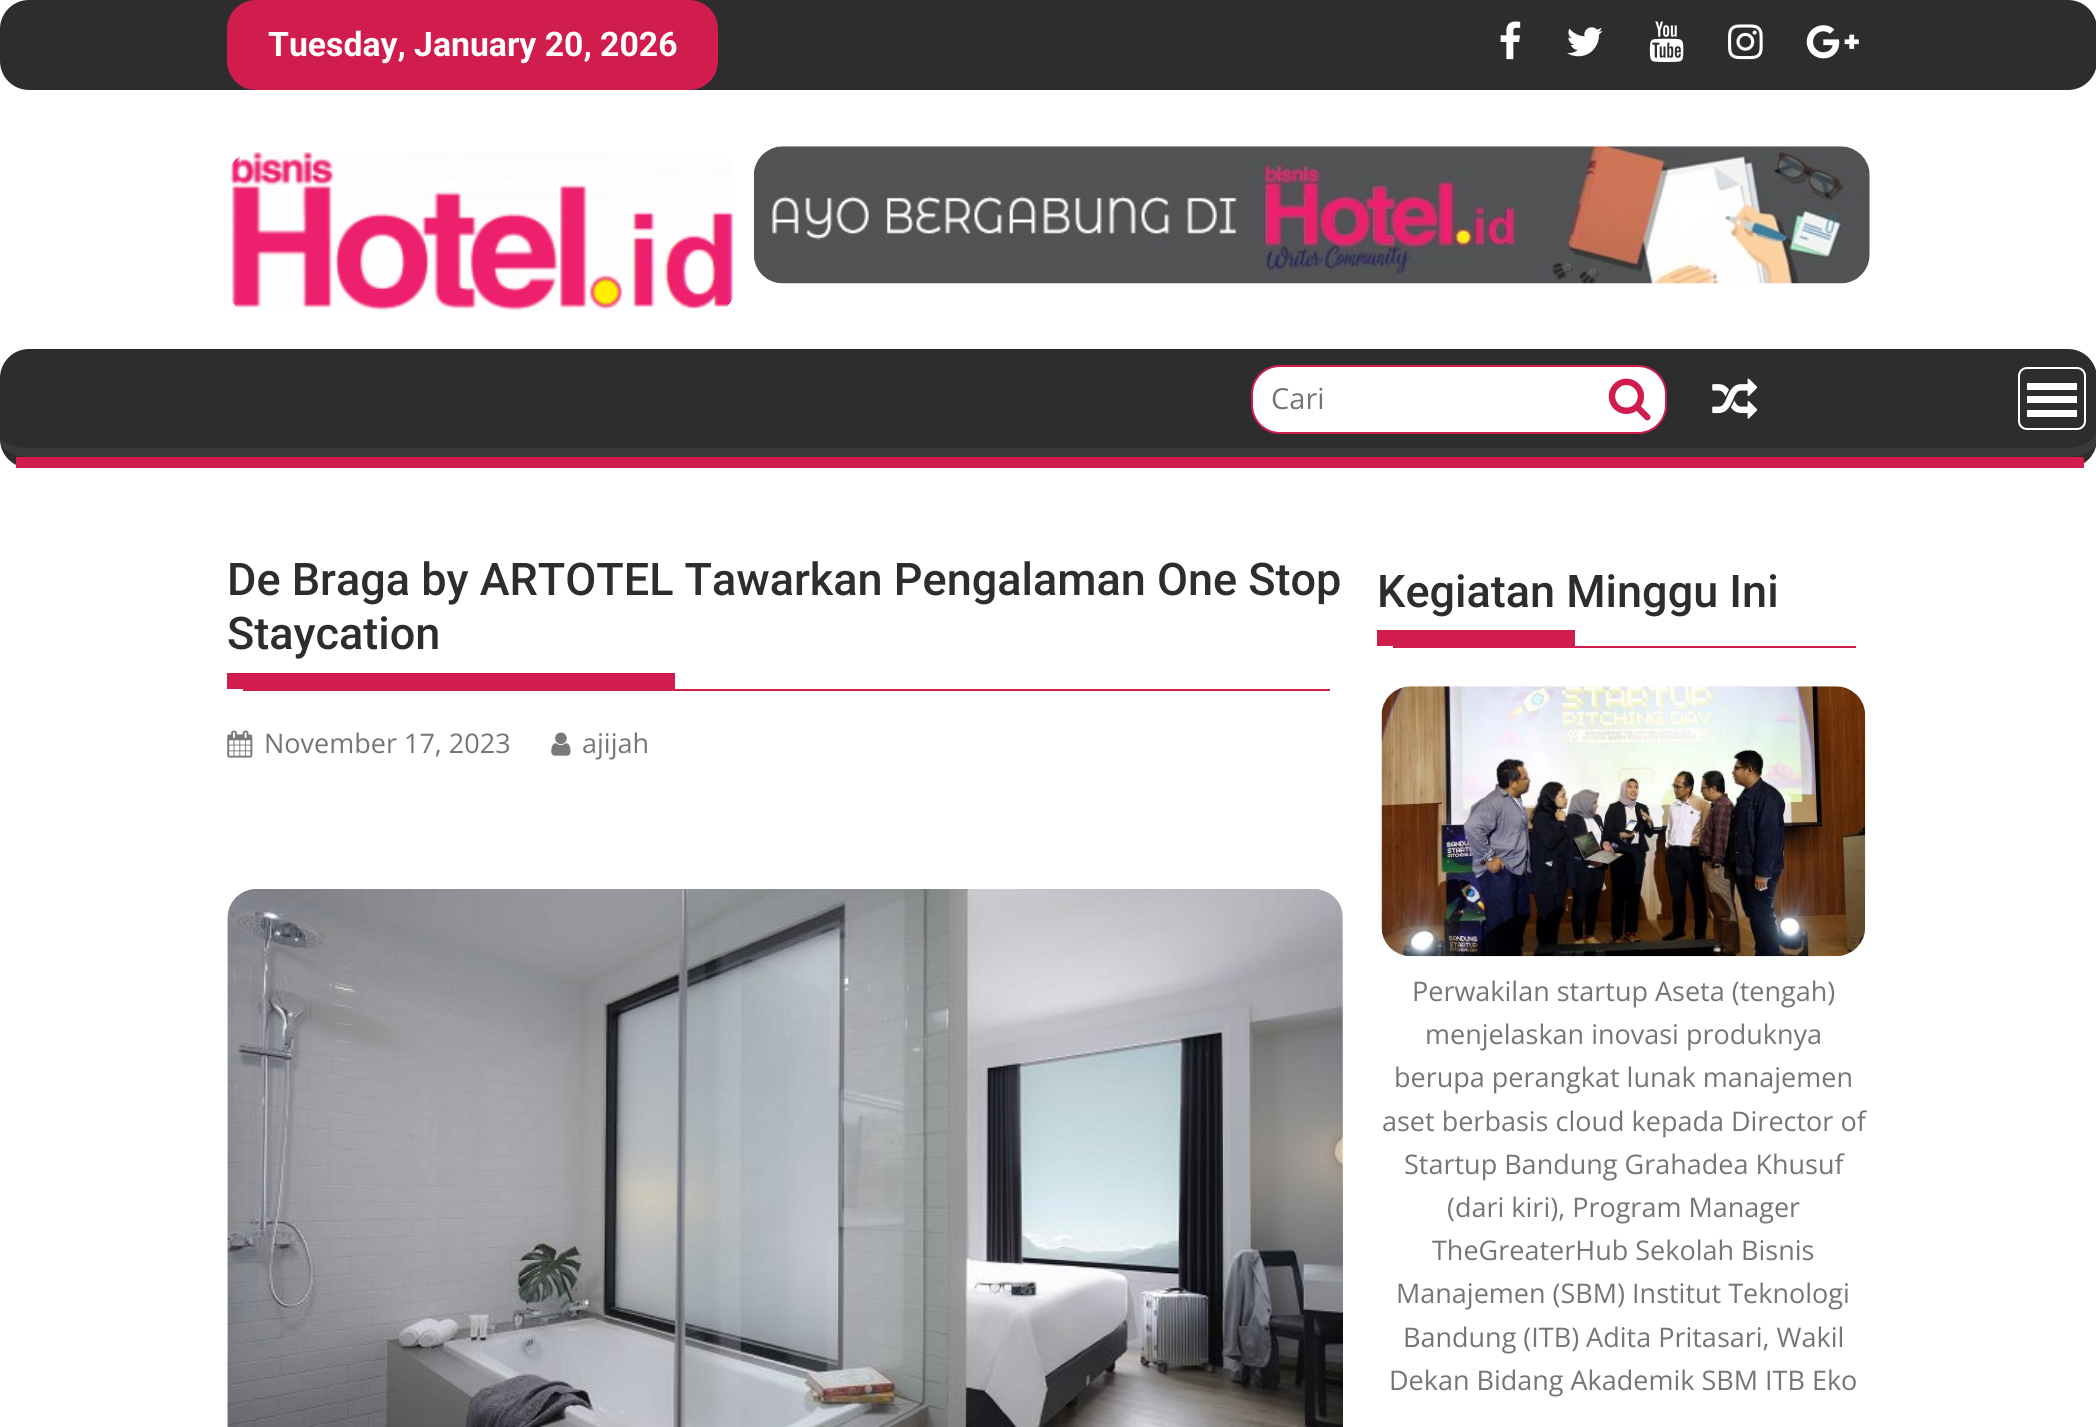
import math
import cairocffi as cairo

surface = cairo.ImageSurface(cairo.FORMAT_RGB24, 2096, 1427)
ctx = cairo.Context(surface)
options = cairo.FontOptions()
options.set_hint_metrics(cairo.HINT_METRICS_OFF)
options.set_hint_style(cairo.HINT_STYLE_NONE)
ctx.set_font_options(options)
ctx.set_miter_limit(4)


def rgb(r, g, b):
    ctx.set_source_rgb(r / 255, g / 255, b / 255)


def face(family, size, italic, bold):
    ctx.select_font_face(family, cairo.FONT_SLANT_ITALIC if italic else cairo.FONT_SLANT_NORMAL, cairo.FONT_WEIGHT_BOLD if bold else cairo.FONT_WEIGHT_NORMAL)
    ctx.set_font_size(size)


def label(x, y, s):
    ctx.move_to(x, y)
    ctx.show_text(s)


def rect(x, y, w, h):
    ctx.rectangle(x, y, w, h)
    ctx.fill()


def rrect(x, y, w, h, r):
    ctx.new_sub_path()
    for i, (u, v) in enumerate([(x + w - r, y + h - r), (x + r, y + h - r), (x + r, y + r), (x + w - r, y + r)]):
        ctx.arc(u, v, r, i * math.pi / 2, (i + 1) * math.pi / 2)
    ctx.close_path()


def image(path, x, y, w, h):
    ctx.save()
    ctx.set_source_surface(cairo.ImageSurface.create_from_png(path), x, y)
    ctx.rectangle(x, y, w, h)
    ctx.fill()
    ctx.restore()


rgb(255, 255, 255)
ctx.paint()
rgb(45, 45, 45)
rrect(0, 0, 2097, 90, 29)
ctx.fill()
rgb(209, 29, 77)
rrect(227, 0, 491, 90, 29)
ctx.fill()
face('Roboto', 33.75, 0, 1)
rgb(255, 255, 255)
label(268, 56, 'Tuesday, January 20, 2026')
image('image0.png', 1500, 21, 21, 39)
image('image1.png', 1567, 27, 36, 30)
image('image2.png', 1649, 21, 35, 41)
image('image3.png', 1728, 24, 35, 36)
image('image4.png', 1806, 25, 53, 34)
image('image5.png', 230, 152, 503, 159)
image('image6.png', 753, 146, 1117, 138)
rgb(45, 45, 45)
rrect(0, 349, 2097, 119, 29)
ctx.fill()
rgb(57, 57, 57)
ctx.new_path()
ctx.move_to(0, 438)
ctx.line_to(0, 439)
ctx.curve_to(0, 449, 13, 457, 29, 457)
ctx.line_to(2068, 457)
ctx.curve_to(2084, 457, 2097, 449, 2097, 439)
ctx.line_to(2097, 428)
ctx.curve_to(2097, 439, 2083, 448, 2066, 448)
ctx.line_to(27, 448)
ctx.curve_to(15, 448, 5, 444, 0, 438)
ctx.close_path()
ctx.fill()
rgb(209, 29, 77)
rect(16, 457, 2068, 11)
rgb(255, 255, 255)
rrect(1252, 366, 414, 67, 28)
ctx.fill_preserve()
rgb(209, 29, 77)
ctx.stroke()
face('Open Sans', 29, 0, 0)
rgb(117, 117, 117)
label(1271, 409, 'Cari')
image('image7.png', 1608, 378, 43, 43)
image('image8.png', 1712, 378, 46, 41)
rrect(2019, 368, 66, 61, 8)
rgb(255, 255, 255)
ctx.stroke()
rect(2027, 410, 50, 7)
rect(2027, 396, 50, 7)
rect(2027, 383, 50, 7)
rgb(209, 29, 77)
rect(243, 689, 1087, 2)
face('Roboto Medium', 45, 0, 0)
rgb(45, 45, 45)
label(227, 595, 'De Braga by ARTOTEL Tawarkan Pengalaman One Stop')
label(227, 649, 'Staycation')
rgb(209, 29, 77)
rect(227, 673, 448, 16)
image('image9.png', 227, 730, 26, 28)
face('Open Sans', 27, 0, 0)
rgb(117, 117, 117)
label(264, 753, 'November 17, 2023')
image('image10.png', 551, 732, 20, 24)
label(582, 753, 'ajijah')
image('image11.png', 227, 889, 1116, 538)
rgb(209, 29, 77)
rect(1393, 646, 463, 2)
face('Roboto Medium', 45, 0, 0)
rgb(45, 45, 45)
label(1377, 607, 'Kegiatan Minggu Ini')
rgb(209, 29, 77)
rect(1377, 630, 198, 16)
image('image12.png', 1381, 686, 485, 271)
face('Open Sans', 27, 0, 0)
rgb(117, 117, 117)
label(1412, 1001, 'Perwakilan startup Aseta (tengah)')
label(1425, 1044, 'menjelaskan inovasi produknya')
label(1394, 1087, 'berupa perangkat lunak manajemen')
label(1382, 1131, 'aset berbasis cloud kepada Director of')
label(1404, 1174, 'Startup Bandung Grahadea Khusuf')
label(1447, 1217, '(dari kiri), Program Manager')
label(1432, 1260, 'TheGreaterHub Sekolah Bisnis')
label(1396, 1303, 'Manajemen (SBM) Institut Teknologi')
label(1403, 1347, 'Bandung (ITB) Adita Pritasari, Wakil')
label(1389, 1390, 'Dekan Bidang Akademik SBM ITB Eko')
surface.write_to_png('render.png')
